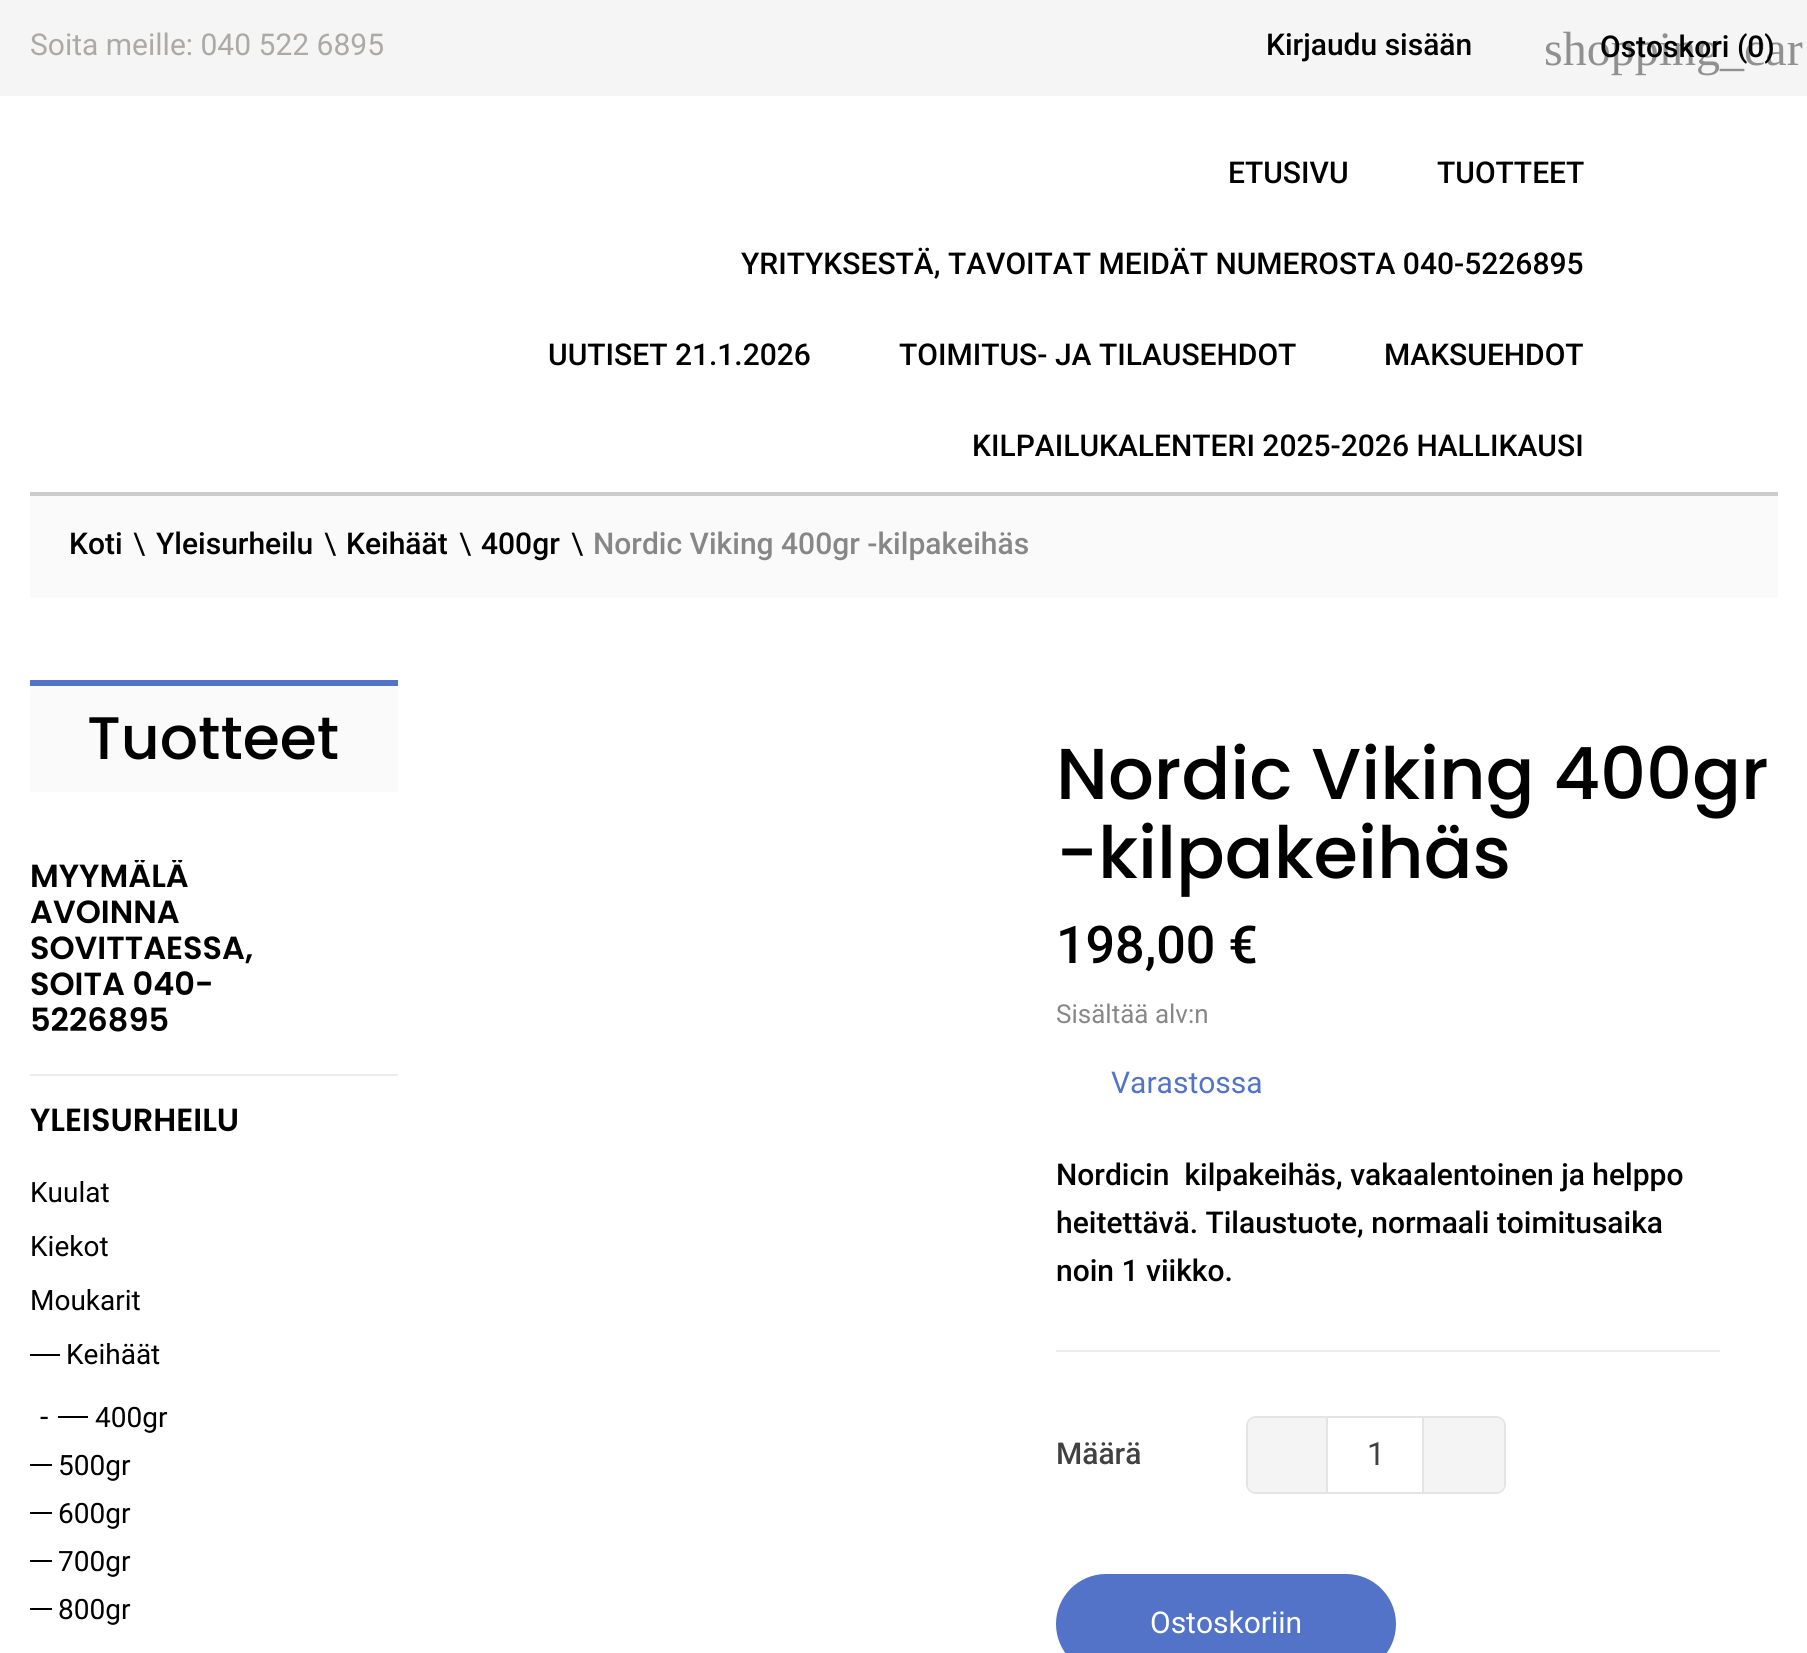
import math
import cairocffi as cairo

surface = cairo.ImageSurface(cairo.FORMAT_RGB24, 1807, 1653)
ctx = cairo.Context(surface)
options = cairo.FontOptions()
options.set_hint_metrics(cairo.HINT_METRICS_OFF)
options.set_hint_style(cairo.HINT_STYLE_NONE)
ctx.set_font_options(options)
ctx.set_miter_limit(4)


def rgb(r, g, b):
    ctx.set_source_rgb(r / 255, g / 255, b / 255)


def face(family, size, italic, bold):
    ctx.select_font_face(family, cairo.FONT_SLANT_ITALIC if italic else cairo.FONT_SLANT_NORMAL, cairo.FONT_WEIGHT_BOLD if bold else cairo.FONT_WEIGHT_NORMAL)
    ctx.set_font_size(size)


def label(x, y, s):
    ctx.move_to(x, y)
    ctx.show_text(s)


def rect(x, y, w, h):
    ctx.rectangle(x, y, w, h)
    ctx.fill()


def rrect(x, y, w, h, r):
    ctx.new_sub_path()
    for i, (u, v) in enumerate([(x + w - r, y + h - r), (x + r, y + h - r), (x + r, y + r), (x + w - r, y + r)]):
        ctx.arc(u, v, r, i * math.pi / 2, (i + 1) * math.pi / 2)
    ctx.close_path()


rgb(255, 255, 255)
ctx.paint()
rgb(245, 245, 245)
rect(0, 0, 1807, 96)
face('Roboto', 30, 0, 0)
rgb(172, 170, 166)
label(30, 55, 'Soita meille: 040 522 6895')
face('Roboto Medium', 30, 0, 0)
rgb(0, 0, 0)
label(1266, 55, 'Kirjaudu sisään')
face('Liberation Serif', 48, 0, 0)
rgb(144, 144, 144)
label(1544, 65, 'shopping_car')
face('Roboto Medium', 30, 0, 0)
rgb(0, 0, 0)
label(1600, 57, 'Ostoskori (0)')
rgb(204, 204, 204)
rect(30, 492, 1748, 4)
rgb(0, 0, 0)
label(1228, 183, 'ETUSIVU')
label(1437, 183, 'TUOTTEET')
label(741, 274, 'YRITYKSESTÄ, TAVOITAT MEIDÄT NUMEROSTA 040-5226895')
label(548, 365, 'UUTISET 21.1.2026')
label(899, 365, 'TOIMITUS- JA TILAUSEHDOT')
label(1384, 365, 'MAKSUEHDOT')
label(972, 456, 'KILPAILUKALENTERI 2025-2026 HALLIKAUSI')
rgb(250, 250, 250)
rect(30, 496, 1748, 102)
rgb(0, 0, 0)
label(69, 554, 'Koti')
face('Roboto', 30, 0, 0)
label(133, 554, '\\')
face('Roboto Medium', 30, 0, 0)
label(156, 554, 'Yleisurheilu')
face('Roboto', 30, 0, 0)
label(324, 554, '\\')
face('Roboto Medium', 30, 0, 0)
label(346, 554, 'Keihäät')
face('Roboto', 30, 0, 0)
label(459, 554, '\\')
face('Roboto Medium', 30, 0, 0)
label(481, 554, '400gr')
face('Roboto', 30, 0, 0)
label(571, 554, '\\')
face('Roboto Medium', 30, 0, 0)
rgb(135, 135, 135)
label(593, 554, 'Nordic Viking 400gr -kilpakeihäs')
rgb(250, 250, 250)
rect(30, 686, 368, 106)
rgb(82, 115, 200)
rect(30, 680, 368, 6)
face('Poppins Medium', 60, 0, 0)
rgb(0, 0, 0)
label(87, 759, 'Tuotteet')
rgb(237, 237, 237)
rect(30, 1074, 368, 2)
ctx.save()
ctx.rectangle(30, 860, 368, 180)
ctx.clip()
face('Poppins SemiBold', 32, 0, 0)
rgb(0, 0, 0)
label(30, 887, 'MYYMÄLÄ')
ctx.restore()
face('Poppins SemiBold', 32, 0, 0)
rgb(0, 0, 0)
label(30, 923, 'AVOINNA')
label(30, 959, 'SOVITTAESSA,')
label(30, 995, 'SOITA 040-')
label(30, 1031, '5226895')
label(30, 1131, 'YLEISURHEILU')
face('Roboto', 28, 0, 0)
label(30, 1202, 'Kuulat')
label(30, 1256, 'Kiekot')
label(30, 1310, 'Moukarit')
rect(30, 1354, 30, 2)
label(66, 1364, 'Keihäät')
face('Roboto', 30, 0, 0)
label(40, 1427, '-')
rect(58, 1416, 30, 2)
face('Roboto', 28, 0, 0)
label(95, 1427, '400gr')
rect(30, 1464, 22, 2)
label(58, 1475, '500gr')
rect(30, 1512, 22, 2)
label(58, 1523, '600gr')
rect(30, 1560, 22, 2)
label(58, 1571, '700gr')
rect(30, 1608, 22, 2)
label(58, 1619, '800gr')
face('Poppins Medium', 72, 0, 0)
label(1056, 799, 'Nordic Viking 400gr')
label(1056, 878, '-kilpakeihäs')
face('Roboto Medium', 52, 0, 0)
label(1056, 963, '198,00 €')
face('Roboto', 26, 0, 0)
rgb(135, 135, 135)
label(1056, 1023, 'Sisältää alv:n')
face('Roboto', 30, 0, 0)
rgb(82, 115, 200)
label(1111, 1093, 'Varastossa')
face('Roboto Medium', 30, 0, 0)
rgb(0, 0, 0)
label(1056, 1185, 'Nordicin  kilpakeihäs, vakaalentoinen ja helppo')
label(1056, 1233, 'heitettävä. Tilaustuote, normaali toimitusaika')
label(1056, 1281, 'noin 1 viikko.')
rgb(237, 237, 237)
rect(1056, 1350, 664, 2)
rgb(65, 65, 65)
label(1056, 1464, 'Määrä')
rrect(1247, 1417, 258, 76, 9)
rgb(228, 228, 228)
ctx.stroke()
rgb(244, 244, 244)
ctx.new_path()
ctx.move_to(1256, 1418)
ctx.line_to(1328, 1418)
ctx.line_to(1328, 1492)
ctx.line_to(1256, 1492)
ctx.curve_to(1251.5, 1492, 1248, 1488.5, 1248, 1484)
ctx.line_to(1248, 1426)
ctx.curve_to(1248, 1421.5, 1251.5, 1418, 1256, 1418)
ctx.close_path()
ctx.fill()
ctx.new_path()
ctx.move_to(1424, 1418)
ctx.line_to(1496, 1418)
ctx.curve_to(1500.5, 1418, 1504, 1421.5, 1504, 1426)
ctx.line_to(1504, 1484)
ctx.curve_to(1504, 1488.5, 1500.5, 1492, 1496, 1492)
ctx.line_to(1424, 1492)
ctx.close_path()
ctx.fill()
rgb(228, 228, 228)
rect(1422, 1418, 2, 74)
rect(1326, 1418, 2, 74)
face('Roboto', 32, 0, 0)
rgb(65, 65, 65)
label(1367, 1465, '1')
rgb(82, 115, 200)
rrect(1056, 1574, 340, 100, 50)
ctx.fill()
face('Roboto', 30, 0, 0)
rgb(255, 255, 255)
label(1150, 1633, 'Ostoskoriin')
surface.write_to_png('render.png')
